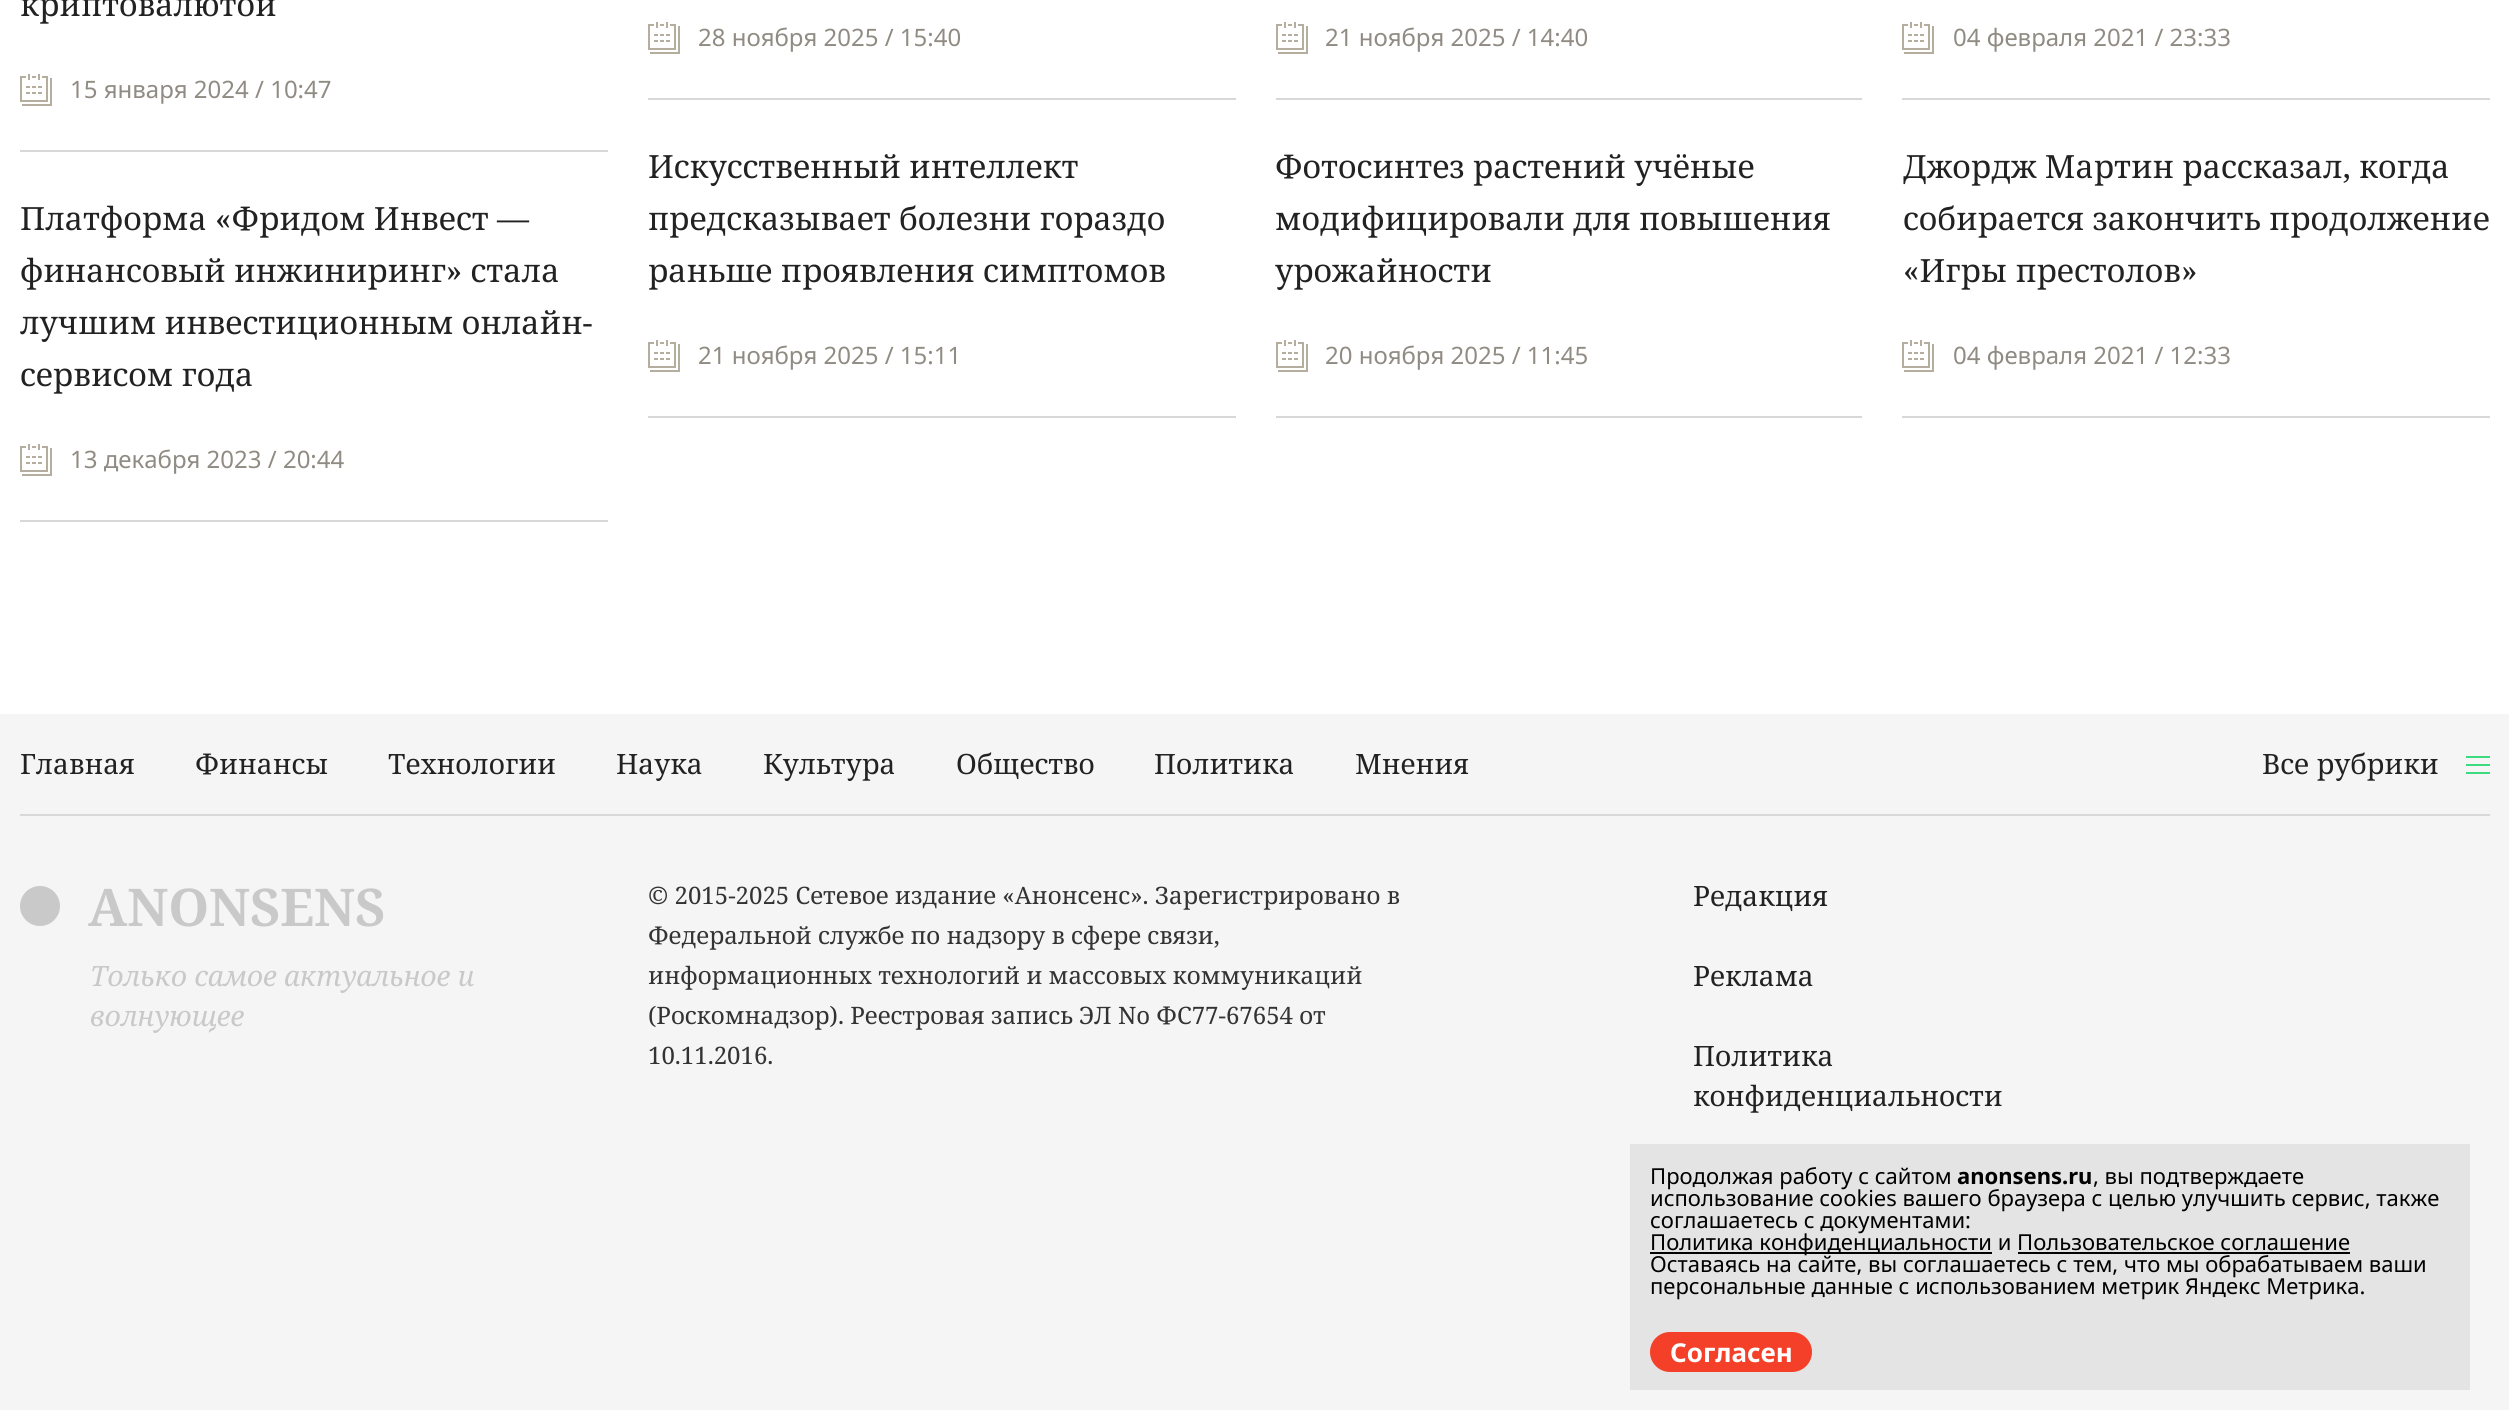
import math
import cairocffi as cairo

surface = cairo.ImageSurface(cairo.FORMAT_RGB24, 2509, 1410)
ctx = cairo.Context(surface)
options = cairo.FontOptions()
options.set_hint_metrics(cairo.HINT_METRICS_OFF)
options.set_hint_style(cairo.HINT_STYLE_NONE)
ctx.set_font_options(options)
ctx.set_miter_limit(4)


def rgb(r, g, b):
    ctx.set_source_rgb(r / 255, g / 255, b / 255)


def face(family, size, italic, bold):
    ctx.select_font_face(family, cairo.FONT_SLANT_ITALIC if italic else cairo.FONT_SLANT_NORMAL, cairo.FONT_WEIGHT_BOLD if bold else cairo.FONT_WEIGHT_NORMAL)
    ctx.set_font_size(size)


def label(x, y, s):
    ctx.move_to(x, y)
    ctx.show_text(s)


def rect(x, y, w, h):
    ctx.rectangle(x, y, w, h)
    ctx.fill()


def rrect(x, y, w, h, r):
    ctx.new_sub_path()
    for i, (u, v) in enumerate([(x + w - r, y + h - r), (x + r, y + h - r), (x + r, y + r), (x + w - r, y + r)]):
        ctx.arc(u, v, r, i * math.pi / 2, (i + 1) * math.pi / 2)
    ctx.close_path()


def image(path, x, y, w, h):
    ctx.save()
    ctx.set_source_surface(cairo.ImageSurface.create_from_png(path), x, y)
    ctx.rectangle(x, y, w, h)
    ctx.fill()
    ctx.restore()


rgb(255, 255, 255)
ctx.paint()
rgb(216, 216, 216)
rect(20, 150, 588, 2)
face('Noto Serif', 32, 0, 0)
rgb(34, 34, 34)
label(20, 16, 'криптовалютой')
image('image0.png', 20, 74, 32, 32)
face('Noto Sans', 24, 0, 0)
rgb(144, 139, 131)
label(70, 98, '15 января 2024 / 10:47')
rgb(216, 216, 216)
rect(20, 520, 588, 2)
face('Noto Serif', 32, 0, 0)
rgb(34, 34, 34)
label(20, 230, 'Платформа «Фридом Инвест —')
label(20, 282, 'финансовый инжиниринг» стала')
label(20, 334, 'лучшим инвестиционным онлайн-')
label(20, 386, 'сервисом года')
image('image0.png', 20, 444, 32, 32)
face('Noto Sans', 24, 0, 0)
rgb(144, 139, 131)
label(70, 468, '13 декабря 2023 / 20:44')
rgb(216, 216, 216)
rect(648, 98, 588, 2)
image('image0.png', 648, 22, 32, 32)
rgb(144, 139, 131)
label(698, 46, '28 ноября 2025 / 15:40')
rgb(216, 216, 216)
rect(648, 416, 588, 2)
face('Noto Serif', 32, 0, 0)
rgb(34, 34, 34)
label(648, 178, 'Искусственный интеллект')
label(648, 230, 'предсказывает болезни гораздо')
label(648, 282, 'раньше проявления симптомов')
image('image0.png', 648, 340, 32, 32)
face('Noto Sans', 24, 0, 0)
rgb(144, 139, 131)
label(698, 364, '21 ноября 2025 / 15:11')
rgb(216, 216, 216)
rect(1276, 98, 586, 2)
image('image0.png', 1276, 22, 32, 32)
rgb(144, 139, 131)
label(1325, 46, '21 ноября 2025 / 14:40')
rgb(216, 216, 216)
rect(1276, 416, 586, 2)
face('Noto Serif', 32, 0, 0)
rgb(34, 34, 34)
label(1275, 178, 'Фотосинтез растений учёные')
label(1275, 230, 'модифицировали для повышения')
label(1275, 282, 'урожайности')
image('image0.png', 1276, 340, 32, 32)
face('Noto Sans', 24, 0, 0)
rgb(144, 139, 131)
label(1325, 364, '20 ноября 2025 / 11:45')
rgb(216, 216, 216)
rect(1902, 98, 588, 2)
image('image0.png', 1902, 22, 32, 32)
rgb(144, 139, 131)
label(1953, 46, '04 февраля 2021 / 23:33')
rgb(216, 216, 216)
rect(1902, 416, 588, 2)
face('Noto Serif', 32, 0, 0)
rgb(34, 34, 34)
label(1903, 178, 'Джордж Мартин рассказал, когда')
label(1903, 230, 'собирается закончить продолжение')
label(1903, 282, '«Игры престолов»')
image('image0.png', 1902, 340, 32, 32)
face('Noto Sans', 24, 0, 0)
rgb(144, 139, 131)
label(1953, 364, '04 февраля 2021 / 12:33')
rgb(245, 245, 245)
rect(0, 714, 2509, 696)
face('Noto Serif', 28, 0, 0)
rgb(34, 34, 34)
label(20, 774, 'Главная')
label(195, 774, 'Финансы')
label(388, 774, 'Технологии')
label(616, 774, 'Наука')
label(763, 774, 'Культура')
label(956, 774, 'Общество')
label(1154, 774, 'Политика')
label(1355, 774, 'Мнения')
label(2262, 774, 'Все рубрики')
image('image1.png', 2466, 756, 24, 18)
rgb(216, 216, 216)
rect(20, 814, 2470, 2)
rgb(201, 201, 201)
ctx.arc(40, 906, 20, 0, 2 * math.pi)
ctx.fill()
face('Noto Serif', 52, 0, 1)
label(88, 926, 'ANONSENS')
face('Noto Serif', 28, 1, 0)
label(90, 986, 'Только самое актуальное и')
label(90, 1026, 'волнующее')
face('Noto Serif', 24, 0, 0)
rgb(51, 51, 51)
label(648, 904, '© 2015-2025 Сетевое издание «Анонсенс». Зарегистрировано в')
label(648, 944, 'Федеральной службе по надзору в сфере связи,')
label(648, 984, 'информационных технологий и массовых коммуникаций')
label(648, 1024, '(Роскомнадзор). Реестровая запись ЭЛ No ФС77-67654 от')
label(648, 1064, '10.11.2016.')
face('Noto Serif', 28, 0, 0)
rgb(34, 34, 34)
label(1693, 906, 'Редакция')
label(1693, 986, 'Реклама')
label(1693, 1066, 'Политика')
label(1693, 1106, 'конфиденциальности')
rgb(228, 228, 228)
rect(1630, 1144, 840, 246)
face('Noto Sans', 22, 0, 0)
rgb(0, 0, 0)
label(1650, 1184, 'Продолжая работу с сайтом')
face('Noto Sans', 22, 0, 1)
label(1957, 1184, 'anonsens.ru')
face('Noto Sans', 22, 0, 0)
label(2093, 1184, ', вы подтверждаете')
label(1650, 1206, 'использование cookies вашего браузера с целью улучшить сервис, также')
label(1650, 1228, 'соглашаетесь с документами:')
rect(1650, 1252, 342, 2)
label(1650, 1250, 'Политика конфиденциальности и Пользовательское соглашение')
rect(2018, 1252, 332, 2)
label(1650, 1272, 'Оставаясь на сайте, вы соглашаетесь с тем, что мы обрабатываем ваши')
label(1650, 1294, 'персональные данные с использованием метрик Яндекс Метрика.')
rgb(244, 64, 41)
rrect(1650, 1332, 162, 40, 20)
ctx.fill()
face('Noto Sans', 26, 0, 1)
rgb(255, 255, 255)
label(1670, 1362, 'Согласен')
surface.write_to_png('render.png')
